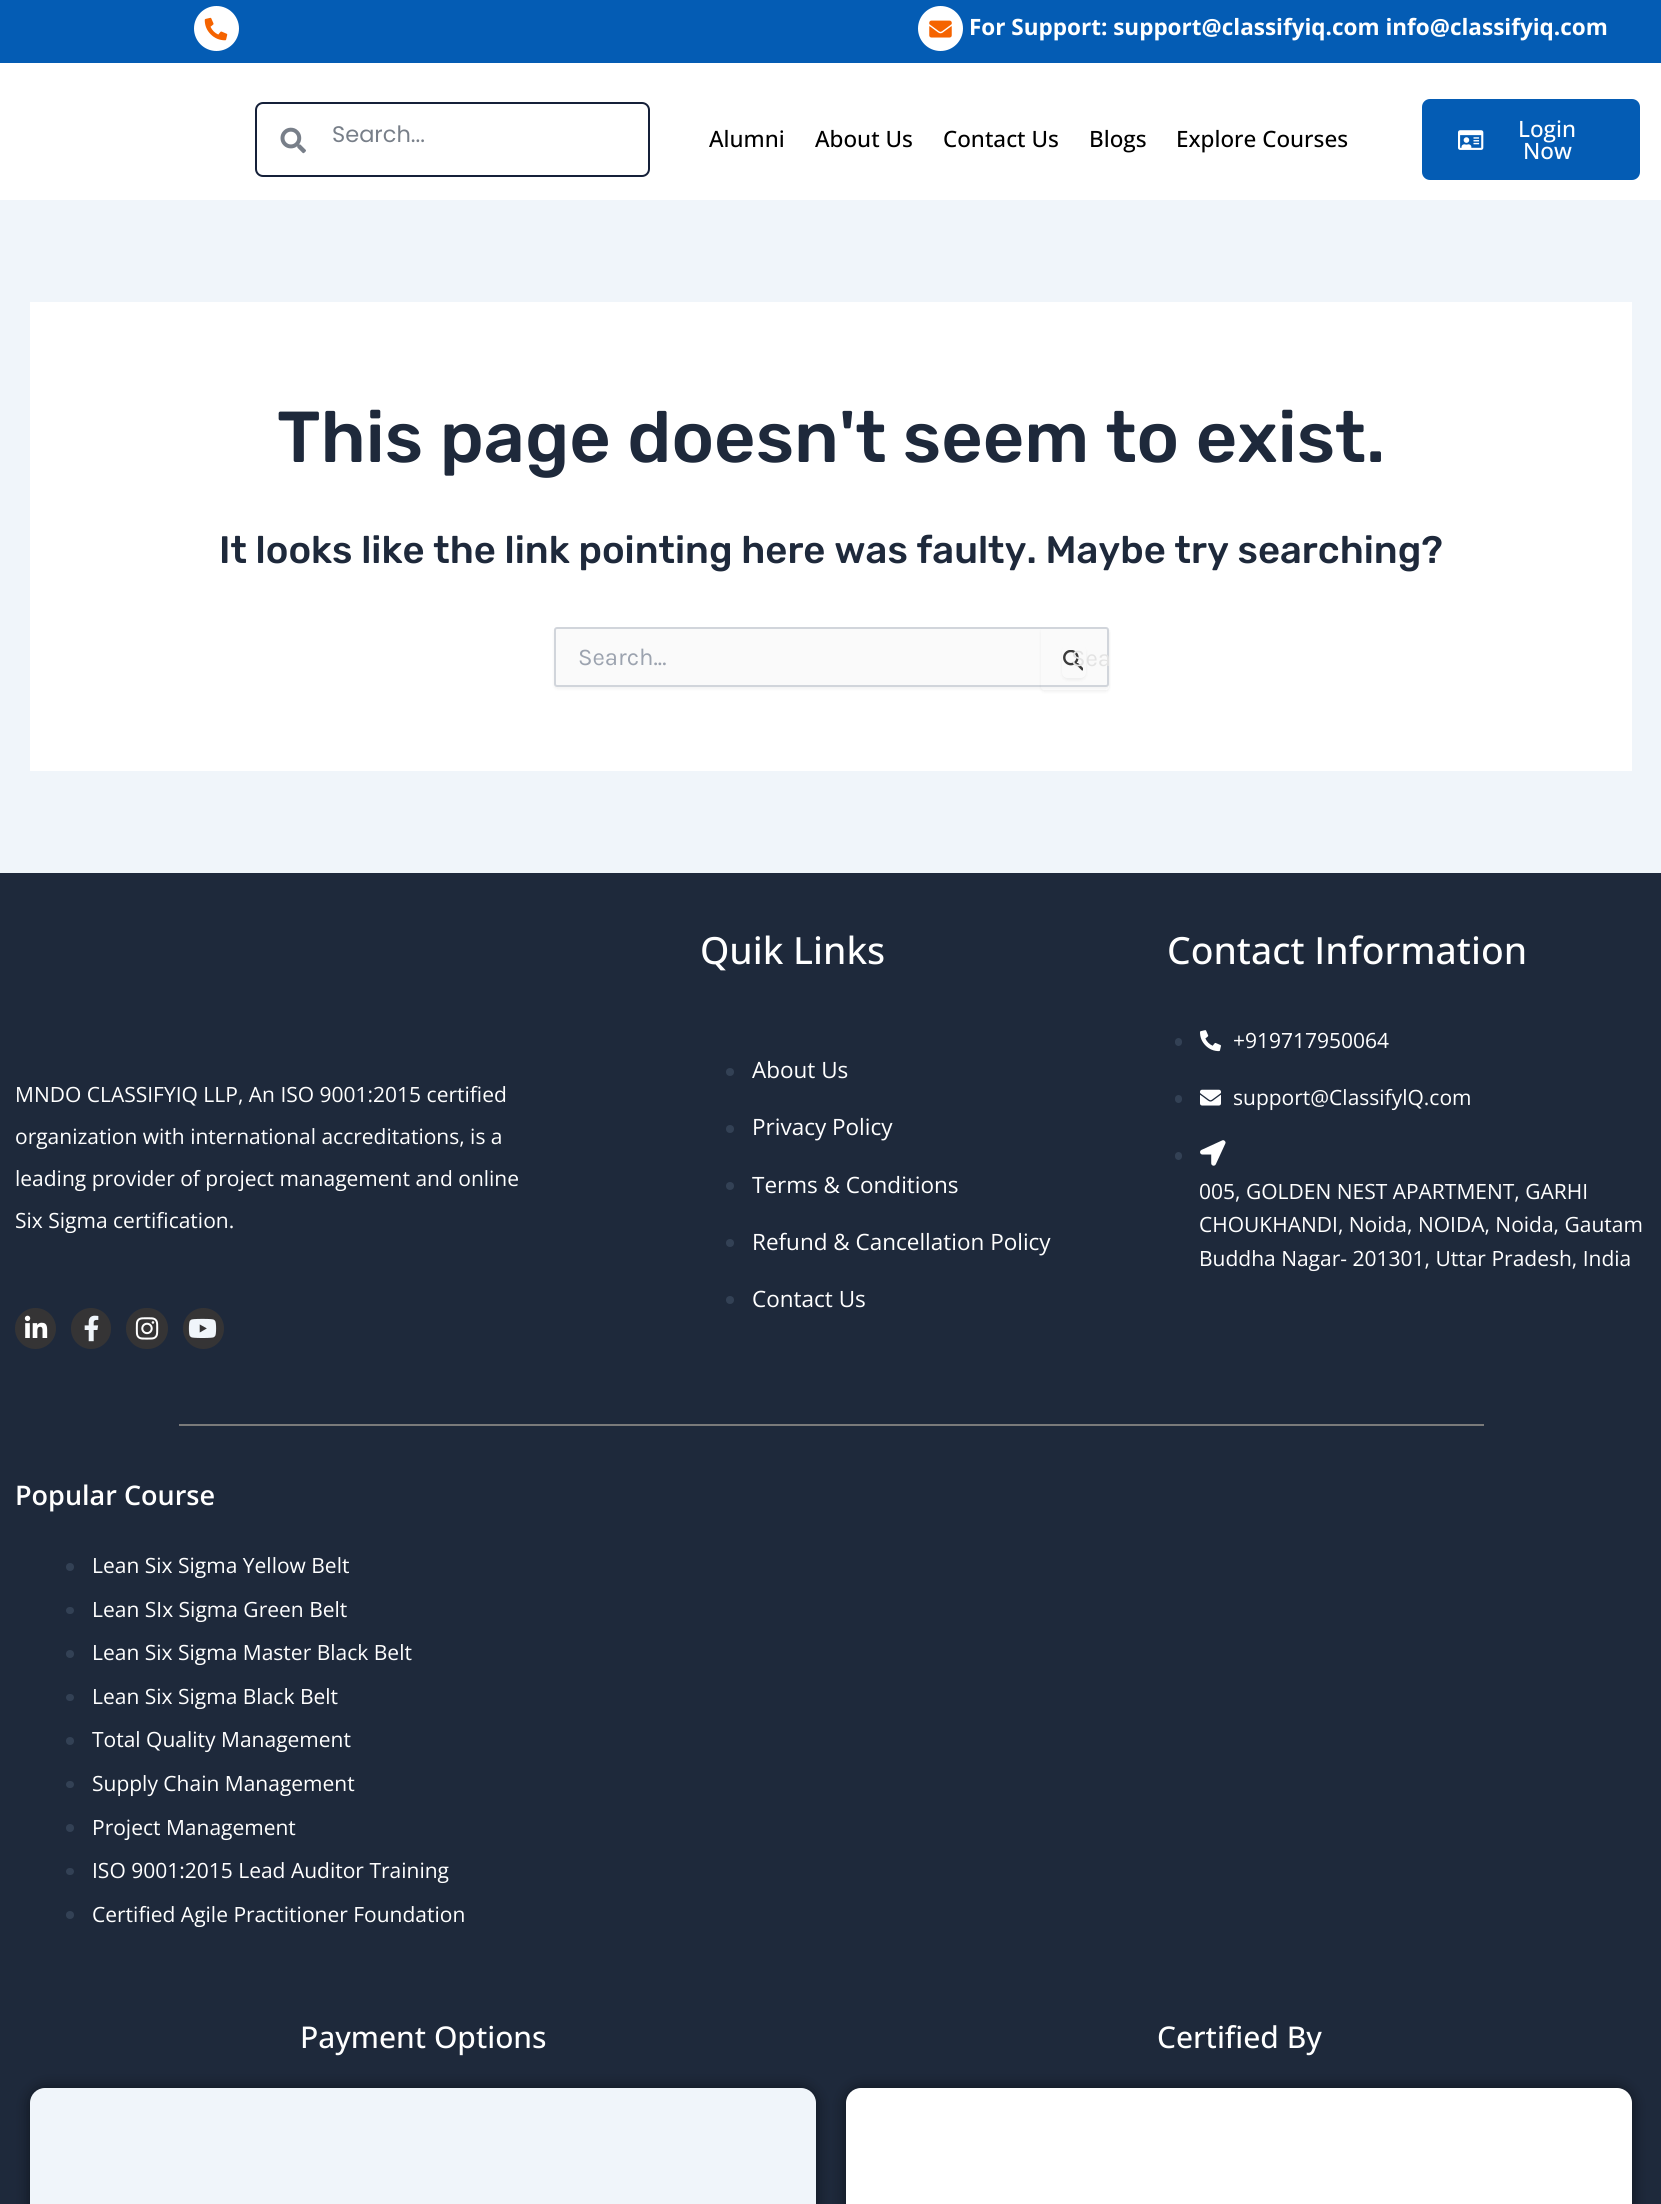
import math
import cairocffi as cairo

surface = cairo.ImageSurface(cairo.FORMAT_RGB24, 1661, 2204)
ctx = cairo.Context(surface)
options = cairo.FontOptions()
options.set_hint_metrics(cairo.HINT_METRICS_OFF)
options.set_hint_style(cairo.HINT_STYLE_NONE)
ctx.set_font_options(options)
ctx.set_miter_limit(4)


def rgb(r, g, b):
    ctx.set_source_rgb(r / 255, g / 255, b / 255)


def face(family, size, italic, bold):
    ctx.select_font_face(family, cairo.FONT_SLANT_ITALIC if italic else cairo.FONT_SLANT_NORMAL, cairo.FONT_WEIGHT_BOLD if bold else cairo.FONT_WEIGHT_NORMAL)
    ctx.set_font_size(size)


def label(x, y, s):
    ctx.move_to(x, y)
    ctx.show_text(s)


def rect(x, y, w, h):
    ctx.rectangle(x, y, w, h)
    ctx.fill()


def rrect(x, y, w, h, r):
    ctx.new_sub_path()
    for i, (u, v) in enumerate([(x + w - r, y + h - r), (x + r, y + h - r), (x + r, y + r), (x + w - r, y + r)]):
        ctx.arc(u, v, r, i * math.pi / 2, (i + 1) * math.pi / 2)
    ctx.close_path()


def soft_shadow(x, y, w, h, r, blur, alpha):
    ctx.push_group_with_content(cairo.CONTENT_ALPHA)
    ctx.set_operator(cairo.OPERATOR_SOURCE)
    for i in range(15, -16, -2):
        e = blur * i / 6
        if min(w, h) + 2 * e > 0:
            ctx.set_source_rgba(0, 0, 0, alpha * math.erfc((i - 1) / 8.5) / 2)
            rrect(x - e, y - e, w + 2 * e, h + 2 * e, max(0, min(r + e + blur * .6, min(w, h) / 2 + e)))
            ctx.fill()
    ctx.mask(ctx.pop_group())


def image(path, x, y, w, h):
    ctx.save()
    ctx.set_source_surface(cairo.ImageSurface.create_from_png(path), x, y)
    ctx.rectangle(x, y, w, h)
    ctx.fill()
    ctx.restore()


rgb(240, 245, 250)
ctx.paint()
rgb(4, 92, 180)
rect(0, 0, 1661, 63)
rgb(255, 255, 255)
ctx.arc(216.5, 28.5, 22.5, 0, 2 * math.pi)
ctx.fill()
image('image0.png', 204, 17, 24, 24)
ctx.arc(940.5, 28.5, 22.5, 0, 2 * math.pi)
ctx.fill()
image('image1.png', 929, 20, 23, 18)
face('Open Sans', 22.5, 0, 1)
label(969, 35, 'For Support: support@classifyiq.com info@classifyiq.com')
rect(0, 63, 1661, 137)
rrect(256, 103, 393, 73, 7)
rgb(21, 32, 57)
ctx.stroke()
image('image2.png', 280, 127, 26, 27)
face('Poppins', 22.5, 0, 0)
rgb(120, 127, 137)
label(332, 142, 'Search...')
face('Open Sans Medium', 22.5, 0, 0)
rgb(0, 0, 0)
label(709, 147, 'Alumni')
label(815, 147, 'About Us')
label(943, 147, 'Contact Us')
label(1089, 147, 'Blogs')
label(1176, 147, 'Explore Courses')
rgb(4, 92, 180)
rrect(1422, 99, 218, 81, 8)
ctx.fill()
image('image3.png', 1458, 130, 26, 20)
rgb(255, 255, 255)
label(1518, 137, 'Login')
label(1523, 159, 'Now')
rect(30, 302, 1602, 469)
face('Rubik Medium', 72, 0, 0)
rgb(30, 41, 59)
label(277, 462, 'This page doesn\'t seem to exist.')
face('Rubik Medium', 38.25, 0, 0)
label(219, 563, 'It looks like the link pointing here was faulty. Maybe try searching?')
rgb(0, 0, 0)
soft_shadow(554, 629, 555, 60, 3, 1.5, 0.05)
rgb(250, 250, 250)
rrect(555, 628, 553, 58, 2)
ctx.fill_preserve()
rgb(209, 213, 219)
ctx.stroke()
face('Karla', 24, 0, 0)
rgb(156, 163, 175)
label(578, 665, 'Search...')
ctx.save()
ctx.set_fill_rule(cairo.FILL_RULE_EVEN_ODD)
ctx.new_path()
ctx.move_to(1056, 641)
ctx.line_to(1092, 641)
ctx.line_to(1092, 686)
ctx.line_to(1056, 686)
ctx.close_path()
ctx.move_to(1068, 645)
ctx.line_to(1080, 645)
ctx.curve_to(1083.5, 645, 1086, 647.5, 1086, 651)
ctx.line_to(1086, 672)
ctx.curve_to(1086, 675.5, 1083.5, 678, 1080, 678)
ctx.line_to(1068, 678)
ctx.curve_to(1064.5, 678, 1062, 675.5, 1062, 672)
ctx.line_to(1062, 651)
ctx.curve_to(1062, 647.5, 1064.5, 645, 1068, 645)
ctx.close_path()
ctx.clip()
rgb(0, 0, 0)
soft_shadow(1062, 647, 24, 33, 6, 1.5, 0.05)
ctx.restore()
image('image4.png', 1063, 650, 20, 21)
ctx.save()
ctx.set_fill_rule(cairo.FILL_RULE_EVEN_ODD)
ctx.new_path()
ctx.move_to(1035, 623)
ctx.line_to(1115, 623)
ctx.line_to(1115, 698)
ctx.line_to(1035, 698)
ctx.close_path()
ctx.move_to(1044, 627)
ctx.line_to(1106, 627)
ctx.curve_to(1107.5, 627, 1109, 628.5, 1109, 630)
ctx.line_to(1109, 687)
ctx.curve_to(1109, 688.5, 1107.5, 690, 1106, 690)
ctx.line_to(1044, 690)
ctx.curve_to(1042.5, 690, 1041, 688.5, 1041, 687)
ctx.line_to(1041, 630)
ctx.curve_to(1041, 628.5, 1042.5, 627, 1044, 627)
ctx.close_path()
ctx.clip()
rgb(0, 0, 0)
soft_shadow(1041, 629, 68, 63, 3, 1.5, 0.05)
ctx.restore()
rgb(227, 227, 227)
label(1071, 666, 'Sea')
rgb(30, 41, 59)
rect(0, 873, 1661, 1331)
face('Open Sans', 21, 0, 0)
rgb(255, 255, 255)
label(15, 1102, 'MNDO CLASSIFYIQ LLP, An ISO 9001:2015 certified')
label(15, 1144, 'organization with international accreditations, is a')
label(15, 1186, 'leading provider of project management and online')
label(15, 1228, 'Six Sigma certification.')
rgb(53, 52, 53)
ctx.new_path()
ctx.arc(35.5, 1328.5, 20.5, 0, 2 * math.pi)
ctx.fill()
image('image5.png', 24, 1315, 24, 23)
rrect(71, 1308, 40, 41, 20)
ctx.fill()
image('image6.png', 84, 1315, 15, 27)
rrect(126, 1308, 42, 41, 20.5)
ctx.fill()
image('image7.png', 135, 1317, 24, 23)
ctx.arc(203.5, 1328.5, 20.5, 0, 2 * math.pi)
ctx.fill()
image('image8.png', 188, 1318, 29, 20)
face('Open Sans Medium', 37.5, 0, 0)
rgb(255, 255, 255)
label(700, 964, 'Quik Links')
rgb(51, 65, 85)
ctx.new_path()
ctx.arc(730, 1072, 4, 0, 2 * math.pi)
ctx.fill()
face('Open Sans', 22.5, 0, 0)
rgb(255, 255, 255)
label(752, 1078, 'About Us')
rgb(51, 65, 85)
ctx.new_path()
ctx.arc(730, 1129, 4, 0, 2 * math.pi)
ctx.fill()
rgb(255, 255, 255)
label(752, 1135, 'Privacy Policy')
rgb(51, 65, 85)
ctx.new_path()
ctx.arc(730, 1186, 4, 0, 2 * math.pi)
ctx.fill()
rgb(255, 255, 255)
label(752, 1193, 'Terms & Conditions')
rgb(51, 65, 85)
ctx.new_path()
ctx.arc(730, 1243, 4, 0, 2 * math.pi)
ctx.fill()
rgb(255, 255, 255)
label(752, 1250, 'Refund & Cancellation Policy')
rgb(51, 65, 85)
ctx.new_path()
ctx.arc(730, 1300, 4, 0, 2 * math.pi)
ctx.fill()
rgb(255, 255, 255)
label(752, 1307, 'Contact Us')
face('Open Sans Medium', 37.5, 0, 0)
label(1167, 964, 'Contact Information')
rgb(51, 65, 85)
rrect(1175, 1038, 7, 8, 3.5)
ctx.fill()
image('image9.png', 1200, 1030, 21, 22)
face('Open Sans', 21, 0, 0)
rgb(255, 255, 255)
label(1233, 1048, '+919717950064')
rgb(51, 65, 85)
rrect(1175, 1095, 7, 8, 3.5)
ctx.fill()
image('image10.png', 1200, 1089, 21, 17)
rgb(255, 255, 255)
label(1233, 1105, 'support@ClassifylQ.com')
rgb(51, 65, 85)
rrect(1175, 1152, 7, 8, 3.5)
ctx.fill()
image('image11.png', 1200, 1140, 26, 26)
rgb(255, 255, 255)
label(1199, 1199, '005, GOLDEN NEST APARTMENT, GARHI')
label(1199, 1232, 'CHOUKHANDI, Noida, NOIDA, Noida, Gautam')
label(1199, 1266, 'Buddha Nagar- 201301, Uttar Pradesh, India')
rgb(122, 122, 122)
rect(179, 1424, 1305, 2)
face('Open Sans SemiBold', 27, 0, 0)
rgb(255, 255, 255)
label(15, 1505, 'Popular Course')
rgb(51, 65, 85)
ctx.new_path()
ctx.arc(70, 1567, 4, 0, 2 * math.pi)
ctx.fill()
face('Open Sans', 21, 0, 0)
rgb(255, 255, 255)
label(92, 1573, 'Lean Six Sigma Yellow Belt')
rgb(51, 65, 85)
rrect(66, 1607, 8, 7, 3.5)
ctx.fill()
rgb(255, 255, 255)
label(92, 1617, 'Lean SIx Sigma Green Belt')
rgb(51, 65, 85)
ctx.new_path()
ctx.arc(70, 1654, 4, 0, 2 * math.pi)
ctx.fill()
rgb(255, 255, 255)
label(92, 1660, 'Lean Six Sigma Master Black Belt')
rgb(51, 65, 85)
rrect(66, 1694, 8, 7, 3.5)
ctx.fill()
rgb(255, 255, 255)
label(92, 1704, 'Lean Six Sigma Black Belt')
rgb(51, 65, 85)
ctx.new_path()
ctx.arc(70, 1741, 4, 0, 2 * math.pi)
ctx.fill()
rgb(255, 255, 255)
label(92, 1747, 'Total Quality Management')
rgb(51, 65, 85)
rrect(66, 1781, 8, 7, 3.5)
ctx.fill()
rgb(255, 255, 255)
label(92, 1791, 'Supply Chain Management')
rgb(51, 65, 85)
ctx.new_path()
ctx.arc(70, 1828, 4, 0, 2 * math.pi)
ctx.fill()
rgb(255, 255, 255)
label(92, 1835, 'Project Management')
rgb(51, 65, 85)
rrect(66, 1868, 8, 7, 3.5)
ctx.fill()
rgb(255, 255, 255)
label(92, 1878, 'ISO 9001:2015 Lead Auditor Training')
rgb(51, 65, 85)
ctx.new_path()
ctx.arc(70, 1915, 4, 0, 2 * math.pi)
ctx.fill()
rgb(255, 255, 255)
label(92, 1922, 'Certified Agile Practitioner Foundation')
face('Open Sans Medium', 30, 0, 0)
label(300, 2048, 'Payment Options')
rgb(0, 0, 0)
soft_shadow(30, 2088, 786, 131, 15, 7.5, 0.5)
rgb(240, 245, 250)
rrect(30, 2088, 786, 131, 15)
ctx.fill()
rgb(255, 255, 255)
label(1157, 2048, 'Certified By')
rgb(0, 0, 0)
soft_shadow(846, 2088, 786, 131, 15, 7.5, 0.5)
rgb(255, 255, 255)
rrect(846, 2088, 786, 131, 15)
ctx.fill()
surface.write_to_png('render.png')
